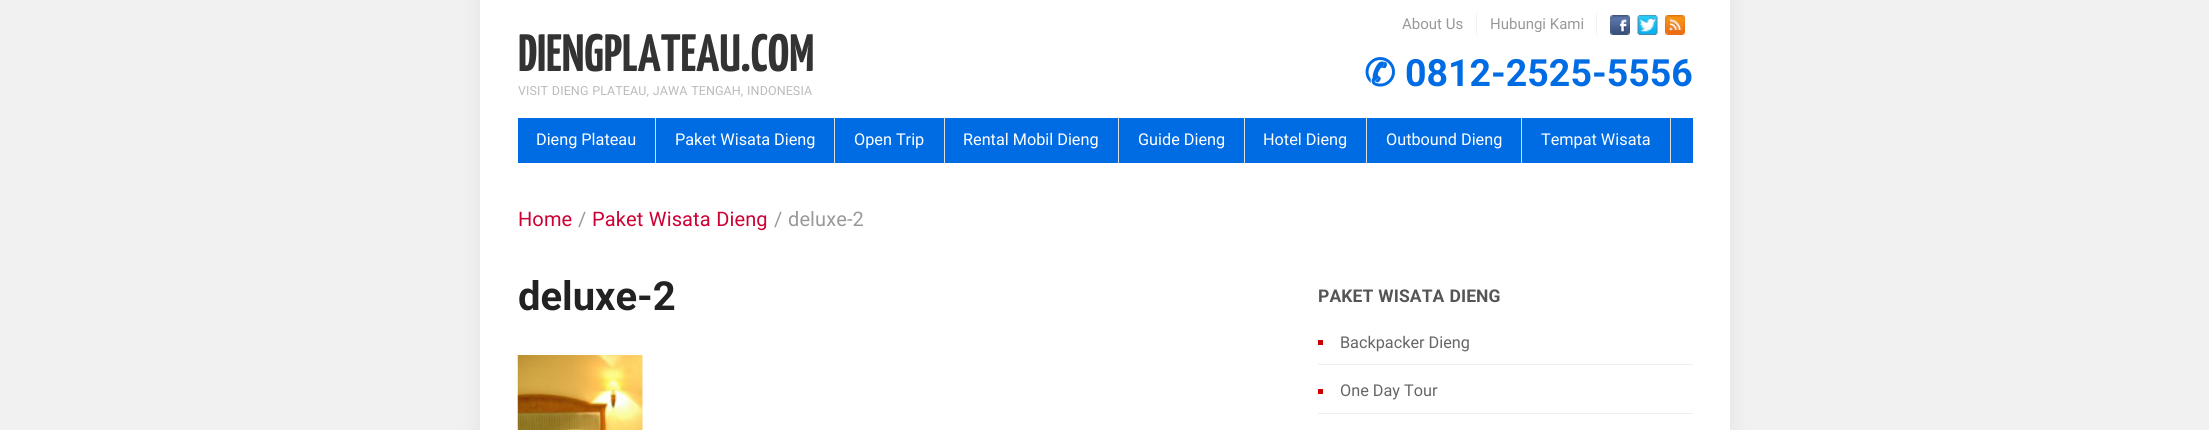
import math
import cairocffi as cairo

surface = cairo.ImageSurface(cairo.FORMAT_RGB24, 2209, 430)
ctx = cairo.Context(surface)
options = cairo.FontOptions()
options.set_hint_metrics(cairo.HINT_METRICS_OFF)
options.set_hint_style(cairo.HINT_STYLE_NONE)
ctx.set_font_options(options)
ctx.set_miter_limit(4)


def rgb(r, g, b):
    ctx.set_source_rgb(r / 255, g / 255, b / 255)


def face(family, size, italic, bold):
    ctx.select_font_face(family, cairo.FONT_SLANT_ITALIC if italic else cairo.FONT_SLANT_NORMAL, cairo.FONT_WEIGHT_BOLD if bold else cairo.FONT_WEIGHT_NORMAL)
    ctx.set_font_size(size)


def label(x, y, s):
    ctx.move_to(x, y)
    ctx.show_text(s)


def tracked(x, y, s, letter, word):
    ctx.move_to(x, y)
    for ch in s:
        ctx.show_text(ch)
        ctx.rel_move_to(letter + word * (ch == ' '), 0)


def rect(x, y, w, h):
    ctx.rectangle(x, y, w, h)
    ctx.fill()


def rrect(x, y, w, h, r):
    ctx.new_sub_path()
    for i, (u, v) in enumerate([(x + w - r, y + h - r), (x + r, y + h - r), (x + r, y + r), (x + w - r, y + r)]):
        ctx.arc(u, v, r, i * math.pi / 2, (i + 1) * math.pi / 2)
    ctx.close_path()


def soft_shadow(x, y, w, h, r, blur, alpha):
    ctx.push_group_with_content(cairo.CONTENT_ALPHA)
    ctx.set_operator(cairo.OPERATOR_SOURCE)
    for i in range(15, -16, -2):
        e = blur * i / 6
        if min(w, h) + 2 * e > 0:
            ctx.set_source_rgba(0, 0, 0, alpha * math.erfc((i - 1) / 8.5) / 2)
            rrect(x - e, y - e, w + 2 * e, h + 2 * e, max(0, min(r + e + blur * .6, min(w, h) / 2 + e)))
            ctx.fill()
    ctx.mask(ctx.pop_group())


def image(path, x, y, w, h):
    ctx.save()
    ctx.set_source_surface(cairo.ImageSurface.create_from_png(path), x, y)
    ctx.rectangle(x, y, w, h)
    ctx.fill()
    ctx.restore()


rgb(241, 241, 241)
ctx.paint()
rgb(225, 225, 225)
soft_shadow(480, 0, 1250, 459, 0, 9.5, 1)
rgb(255, 255, 255)
rect(480, 0, 1250, 430)
face('Roboto', 15, 0, 0)
rgb(153, 153, 153)
label(1402, 29, 'About Us')
rgb(241, 241, 241)
rect(1476, 13, 1, 22)
rgb(153, 153, 153)
label(1490, 29, 'Hubungi Kami')
rgb(241, 241, 241)
rect(1596, 13, 1, 22)
image('image0.png', 1610, 15, 20, 20)
image('image1.png', 1637, 15, 21, 20)
image('image2.png', 1665, 15, 20, 20)
face('Yanone Kaffeesatz', 52.5, 0, 1)
rgb(51, 51, 51)
label(518, 71, 'DIENGPLATEAU.COM')
face('Roboto', 12.5, 0, 0)
rgb(187, 187, 187)
tracked(518, 95, 'VISIT DIENG PLATEAU, JAWA TENGAH, INDONESIA', 0.1, 0.5)
face('DejaVu Sans', 37.5, 0, 1)
rgb(0, 108, 228)
label(1364, 86, '✆')
face('Roboto', 37.5, 0, 1)
label(1405, 86, '0812-2525-5556')
rect(518, 118, 1175, 45)
rgb(221, 221, 221)
rect(655, 118, 1, 45)
face('Roboto', 16.25, 0, 0)
rgb(255, 255, 255)
label(536, 145, 'Dieng Plateau')
rgb(221, 221, 221)
rect(834, 118, 1, 45)
rgb(255, 255, 255)
label(675, 145, 'Paket Wisata Dieng')
rgb(221, 221, 221)
rect(944, 118, 1, 45)
rgb(255, 255, 255)
label(854, 145, 'Open Trip')
rgb(221, 221, 221)
rect(1118, 118, 1, 45)
rgb(255, 255, 255)
label(963, 145, 'Rental Mobil Dieng')
rgb(221, 221, 221)
rect(1244, 118, 1, 45)
rgb(255, 255, 255)
label(1138, 145, 'Guide Dieng')
rgb(221, 221, 221)
rect(1366, 118, 1, 45)
rgb(255, 255, 255)
label(1263, 145, 'Hotel Dieng')
rgb(221, 221, 221)
rect(1521, 118, 1, 45)
rgb(255, 255, 255)
label(1386, 145, 'Outbound Dieng')
rgb(221, 221, 221)
rect(1670, 118, 1, 45)
rgb(255, 255, 255)
label(1541, 145, 'Tempat Wisata')
face('Roboto', 20, 0, 0)
rgb(204, 0, 51)
tracked(518, 226, 'Home', 0.1, 0)
rgb(153, 153, 153)
tracked(578, 226, '/', 0.1, 0)
rgb(204, 0, 51)
tracked(592, 226, 'Paket Wisata Dieng', 0.1, 0.5)
rgb(153, 153, 153)
tracked(774, 226, '/', 0.1, 0)
tracked(788, 226, 'deluxe-2', 0.1, 0)
face('Roboto', 40, 0, 1)
rgb(34, 34, 34)
label(518, 310, 'deluxe-2')
image('image3.png', 517, 355, 126, 75)
face('Roboto', 17.5, 0, 1)
rgb(85, 85, 85)
tracked(1318, 302, 'PAKET WISATA DIENG', 0.1, 0.5)
rgb(238, 238, 238)
rect(1318, 364, 375, 1)
rgb(204, 0, 0)
rect(1318, 340, 5, 5)
face('Roboto', 16.25, 0, 0)
rgb(102, 102, 102)
label(1340, 348, 'Backpacker Dieng')
rgb(238, 238, 238)
rect(1318, 413, 375, 1)
rgb(204, 0, 0)
rect(1318, 389, 5, 5)
rgb(102, 102, 102)
label(1340, 396, 'One Day Tour')
surface.write_to_png('render.png')
